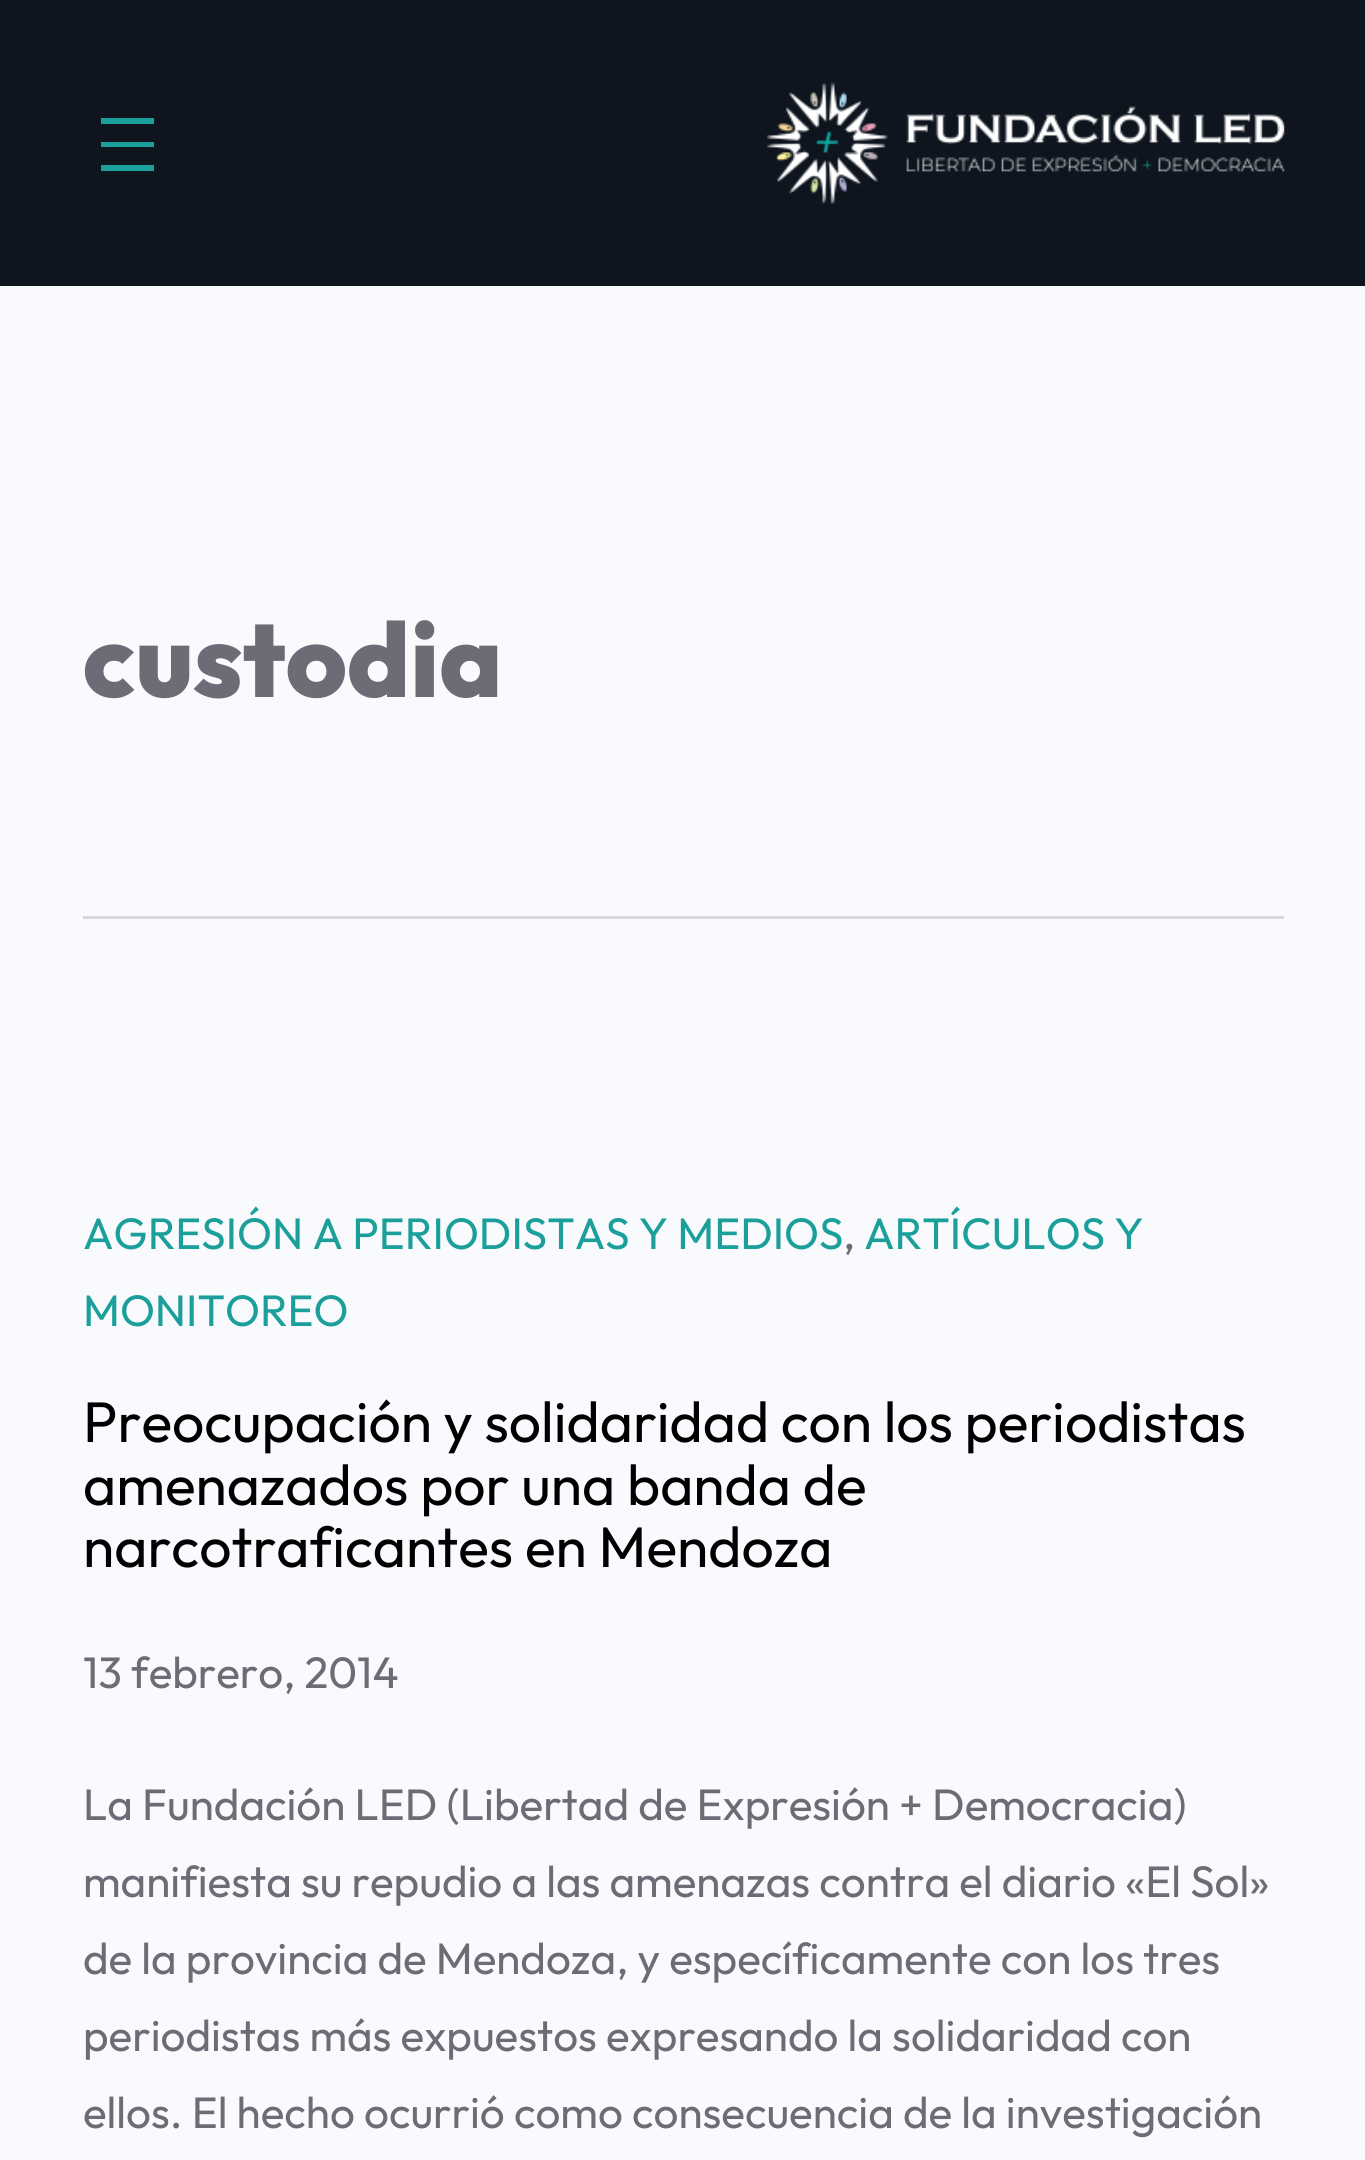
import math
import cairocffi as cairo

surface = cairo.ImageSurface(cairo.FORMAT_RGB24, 1365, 2160)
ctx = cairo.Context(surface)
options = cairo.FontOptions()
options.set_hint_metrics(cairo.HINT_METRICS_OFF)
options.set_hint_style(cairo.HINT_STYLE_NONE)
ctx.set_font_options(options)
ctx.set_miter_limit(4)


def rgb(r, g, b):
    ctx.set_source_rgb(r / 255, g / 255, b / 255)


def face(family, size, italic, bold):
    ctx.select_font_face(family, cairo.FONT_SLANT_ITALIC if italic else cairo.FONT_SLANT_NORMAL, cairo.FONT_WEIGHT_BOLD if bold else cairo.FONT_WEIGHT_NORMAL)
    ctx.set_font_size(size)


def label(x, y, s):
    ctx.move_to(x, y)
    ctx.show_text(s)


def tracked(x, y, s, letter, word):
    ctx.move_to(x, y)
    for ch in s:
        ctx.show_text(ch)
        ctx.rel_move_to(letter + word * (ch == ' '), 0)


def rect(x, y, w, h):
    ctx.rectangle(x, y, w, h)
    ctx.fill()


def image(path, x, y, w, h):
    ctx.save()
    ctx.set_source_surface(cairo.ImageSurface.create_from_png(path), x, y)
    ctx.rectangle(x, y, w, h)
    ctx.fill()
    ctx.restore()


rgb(249, 250, 253)
ctx.paint()
rgb(14, 21, 31)
rect(0, 0, 1365, 286)
rgb(27, 159, 154)
rect(101, 118, 53, 6)
rect(101, 142, 53, 5)
rect(101, 165, 53, 6)
image('image0.png', 767, 82, 518, 122)
face('Outfit ExtraBold', 105, 0, 0)
rgb(108, 108, 119)
label(83, 697, 'custodia')
rgb(217, 217, 217)
rect(83, 916, 1201, 3)
face('Outfit', 44, 0, 0)
rgb(27, 159, 154)
label(83, 1249, 'AGRESIÓN A PERIODISTAS Y MEDIOS')
rgb(108, 108, 119)
label(843, 1249, ',')
rgb(27, 159, 154)
label(864, 1249, 'ARTÍCULOS Y')
label(83, 1326, 'MONITOREO')
face('Outfit', 57, 0, 0)
rgb(0, 0, 0)
tracked(83, 1442, 'Preocupación y solidaridad con los periodistas', 0, -0.25)
label(83, 1505, 'amenazados por una banda de')
label(83, 1567, 'narcotraficantes en Mendoza')
face('Outfit', 44, 0, 0)
rgb(108, 108, 119)
label(83, 1688, '13 febrero, 2014')
label(83, 1820, 'La Fundación LED (Libertad de Expresión + Democracia)')
label(83, 1897, 'manifiesta su repudio a las amenazas contra el diario «El Sol»')
label(83, 1974, 'de la provincia de Mendoza, y específicamente con los tres')
label(83, 2051, 'periodistas más expuestos expresando la solidaridad con')
label(83, 2128, 'ellos. El hecho ocurrió como consecuencia de la investigación')
surface.write_to_png('render.png')
